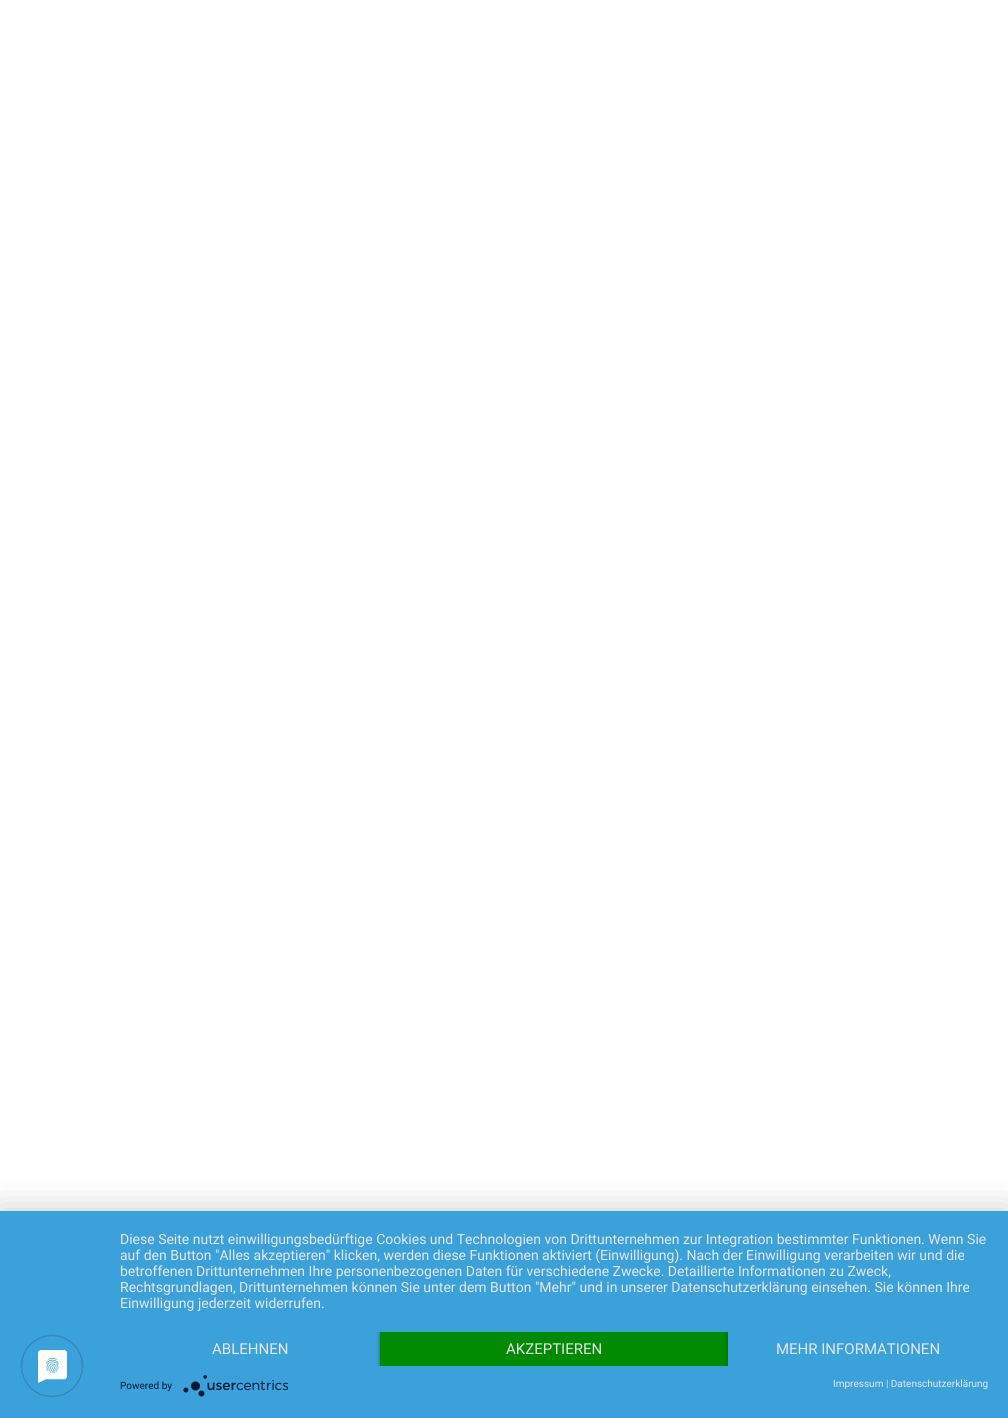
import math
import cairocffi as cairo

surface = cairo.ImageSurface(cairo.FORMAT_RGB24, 1008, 1418)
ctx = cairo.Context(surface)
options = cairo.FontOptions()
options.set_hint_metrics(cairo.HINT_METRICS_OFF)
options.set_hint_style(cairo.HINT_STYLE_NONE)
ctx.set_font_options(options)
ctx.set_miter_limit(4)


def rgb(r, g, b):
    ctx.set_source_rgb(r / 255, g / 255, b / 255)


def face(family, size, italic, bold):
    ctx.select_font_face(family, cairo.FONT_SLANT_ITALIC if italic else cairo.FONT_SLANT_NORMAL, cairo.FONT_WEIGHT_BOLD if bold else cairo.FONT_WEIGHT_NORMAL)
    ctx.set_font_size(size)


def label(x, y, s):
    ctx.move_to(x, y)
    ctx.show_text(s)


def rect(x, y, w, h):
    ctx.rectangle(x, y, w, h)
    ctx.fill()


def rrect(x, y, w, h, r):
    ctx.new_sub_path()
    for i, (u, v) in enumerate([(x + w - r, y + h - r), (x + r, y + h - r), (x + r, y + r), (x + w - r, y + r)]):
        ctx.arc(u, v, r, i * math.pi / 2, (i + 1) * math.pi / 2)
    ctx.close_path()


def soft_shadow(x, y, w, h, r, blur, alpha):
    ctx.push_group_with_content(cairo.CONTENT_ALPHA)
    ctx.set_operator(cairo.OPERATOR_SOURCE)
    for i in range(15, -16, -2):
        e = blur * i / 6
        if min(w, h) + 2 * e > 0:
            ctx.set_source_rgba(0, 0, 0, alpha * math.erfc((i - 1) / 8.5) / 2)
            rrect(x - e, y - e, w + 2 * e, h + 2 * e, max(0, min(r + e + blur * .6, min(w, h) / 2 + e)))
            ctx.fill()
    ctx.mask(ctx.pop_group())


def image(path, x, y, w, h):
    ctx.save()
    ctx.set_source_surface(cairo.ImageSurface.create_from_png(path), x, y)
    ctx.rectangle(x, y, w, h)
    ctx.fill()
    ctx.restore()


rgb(255, 255, 255)
ctx.paint()
rgb(0, 0, 0)
soft_shadow(0, 1217, 1008, 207, 0, 18, 0.3)
rgb(59, 161, 219)
rect(0, 1211, 1008, 207)
image('image0.png', 20, 1334, 64, 64)
face('Roboto', 14, 0, 0)
rgb(230, 230, 230)
label(120, 1244, 'Diese Seite nutzt einwilligungsbedürftige Cookies und Technologien von Drittunternehmen zur Integration bestimmter Funktionen. Wenn Sie')
label(120, 1260, 'auf den Button "Alles akzeptieren" klicken, werden diese Funktionen aktiviert (Einwilligung). Nach der Einwilligung verarbeiten wir und die')
label(120, 1276, 'betroffenen Drittunternehmen Ihre personenbezogenen Daten für verschiedene Zwecke. Detaillierte Informationen zu Zweck,')
label(120, 1292, 'Rechtsgrundlagen, Drittunternehmen können Sie unter dem Button "Mehr" und in unserer Datenschutzerklärung einsehen. Sie können Ihre')
label(120, 1308, 'Einwilligung jederzeit widerrufen.')
face('Roboto', 15, 0, 0)
label(212, 1354, 'ABLEHNEN')
ctx.save()
ctx.rectangle(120, 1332, 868, 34)
ctx.clip()
rgb(0, 0, 0)
soft_shadow(380, 1333, 348, 34, 0, 2, 0.4)
ctx.restore()
rgb(0, 139, 2)
rect(380, 1332, 348, 34)
rgb(230, 230, 230)
label(506, 1354, 'AKZEPTIEREN')
ctx.save()
ctx.rectangle(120, 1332, 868, 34)
ctx.clip()
rgb(0, 0, 0)
soft_shadow(728, 1333, 260, 34, 0, 2, 0.4)
ctx.restore()
rgb(59, 161, 219)
rect(728, 1332, 260, 34)
rgb(230, 230, 230)
label(776, 1354, 'MEHR INFORMATIONEN')
face('Roboto', 10, 0, 0)
rgb(2, 24, 54)
label(120, 1389, 'Powered by')
image('image1.png', 183, 1375, 106, 22)
rgb(230, 230, 230)
label(833, 1387, 'Impressum | Datenschutzerklärung')
surface.write_to_png('render.png')
